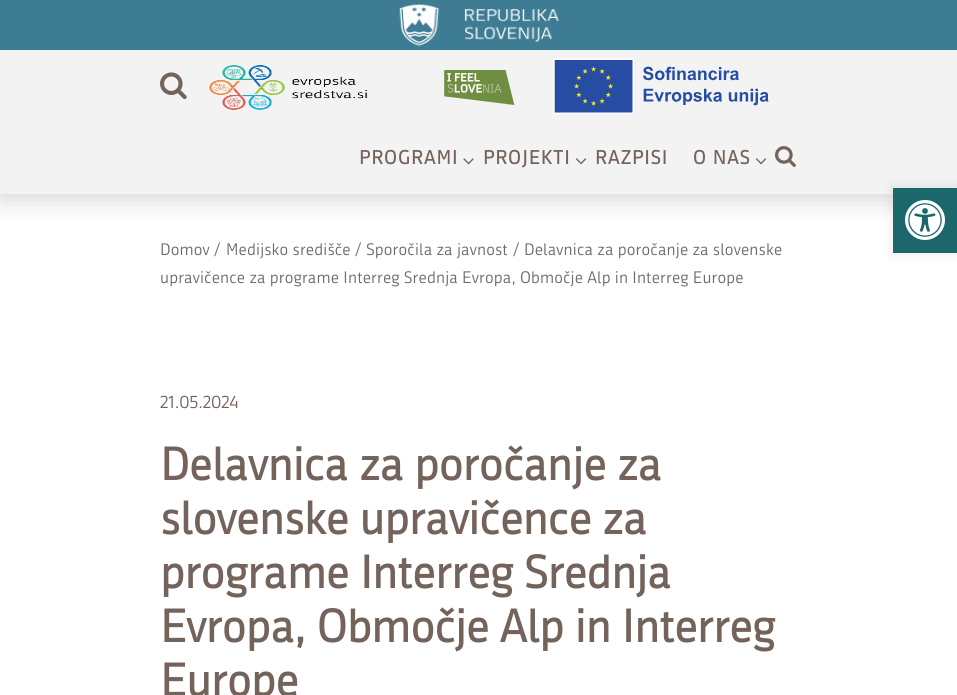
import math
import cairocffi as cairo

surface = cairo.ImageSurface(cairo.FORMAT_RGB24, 957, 695)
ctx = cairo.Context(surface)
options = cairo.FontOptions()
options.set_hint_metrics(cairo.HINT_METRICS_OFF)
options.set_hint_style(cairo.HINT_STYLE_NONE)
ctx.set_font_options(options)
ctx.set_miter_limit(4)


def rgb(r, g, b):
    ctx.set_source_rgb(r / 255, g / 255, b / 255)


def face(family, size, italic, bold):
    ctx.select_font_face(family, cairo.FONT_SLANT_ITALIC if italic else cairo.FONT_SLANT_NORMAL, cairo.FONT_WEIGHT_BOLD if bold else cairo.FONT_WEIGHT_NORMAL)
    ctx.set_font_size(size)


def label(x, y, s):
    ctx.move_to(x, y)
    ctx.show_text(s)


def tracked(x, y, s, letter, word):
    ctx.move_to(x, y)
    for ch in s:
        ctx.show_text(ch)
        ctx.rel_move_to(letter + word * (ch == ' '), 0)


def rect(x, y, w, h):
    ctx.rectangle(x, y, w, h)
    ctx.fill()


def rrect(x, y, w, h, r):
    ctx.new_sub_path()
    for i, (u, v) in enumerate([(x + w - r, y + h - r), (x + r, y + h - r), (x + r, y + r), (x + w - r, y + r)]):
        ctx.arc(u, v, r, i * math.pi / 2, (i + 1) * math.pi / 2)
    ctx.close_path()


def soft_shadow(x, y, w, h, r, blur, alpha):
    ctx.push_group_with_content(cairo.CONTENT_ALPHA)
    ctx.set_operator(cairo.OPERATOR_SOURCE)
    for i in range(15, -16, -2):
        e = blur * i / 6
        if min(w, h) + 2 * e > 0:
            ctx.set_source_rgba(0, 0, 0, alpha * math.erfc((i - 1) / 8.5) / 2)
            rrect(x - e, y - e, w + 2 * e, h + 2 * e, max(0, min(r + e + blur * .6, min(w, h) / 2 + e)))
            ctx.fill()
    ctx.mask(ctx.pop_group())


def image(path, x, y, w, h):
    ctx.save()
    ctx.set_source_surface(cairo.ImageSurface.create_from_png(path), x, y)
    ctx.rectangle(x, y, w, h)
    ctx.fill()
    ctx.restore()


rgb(255, 255, 255)
ctx.paint()
rgb(0, 0, 0)
soft_shadow(0, 6, 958, 194, 0, 12.5, 0.16)
rgb(243, 243, 243)
rect(0, 50, 957, 144)
rgb(62, 124, 148)
rect(0, 0, 957, 50)
image('image0.png', 399, 4, 160, 42)
image('image1.png', 160, 72, 27, 28)
image('image2.png', 209, 65, 159, 45)
image('image3.png', 444, 70, 71, 35)
image('image4.png', 553, 58, 216, 56)
face('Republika', 18.75, 0, 1)
rgb(115, 99, 91)
tracked(359, 164, 'PROGRAMI', 1.25, 0)
image('image5.png', 463, 158, 11, 7)
tracked(483, 164, 'PROJEKTI', 1.25, 0)
image('image6.png', 575, 158, 12, 7)
tracked(595, 164, 'RAZPISI', 1.25, 0)
tracked(693, 164, 'O NAS', 1.25, 0)
image('image6.png', 755, 158, 12, 7)
image('image7.png', 775, 146, 21, 21)
rgb(0, 0, 0)
soft_shadow(893, 188, 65, 65, 0, 6, 0.1)
rgb(27, 103, 107)
rect(893, 188, 64, 65)
image('image8.png', 905, 200, 40, 40)
face('Republika', 16.25, 0, 0)
rgb(107, 107, 105)
tracked(160, 255, 'Domov', 0.15, 0)
tracked(214, 255, '/', 0.15, 0)
tracked(226, 255, 'Medijsko središče', 0.15, 0)
tracked(355, 255, '/', 0.15, 0)
tracked(366, 255, 'Sporočila za javnost', 0.15, 0)
tracked(513, 255, '/', 0.15, 0)
tracked(524, 255, 'Delavnica za poročanje za slovenske', 0.15, 0)
tracked(160, 283, 'upravičence za programe Interreg Srednja Evropa, Območje Alp in Interreg Europe', 0.15, 0)
face('Republika', 17.5, 0, 0)
rgb(115, 99, 91)
label(160, 408, '21.05.2024')
face('Republika', 45, 0, 1)
label(160, 480, 'Delavnica za poročanje za')
label(160, 534, 'slovenske upravičence za')
label(160, 588, 'programe Interreg Srednja')
label(160, 642, 'Evropa, Območje Alp in Interreg')
label(160, 696, 'Europe')
surface.write_to_png('render.png')
